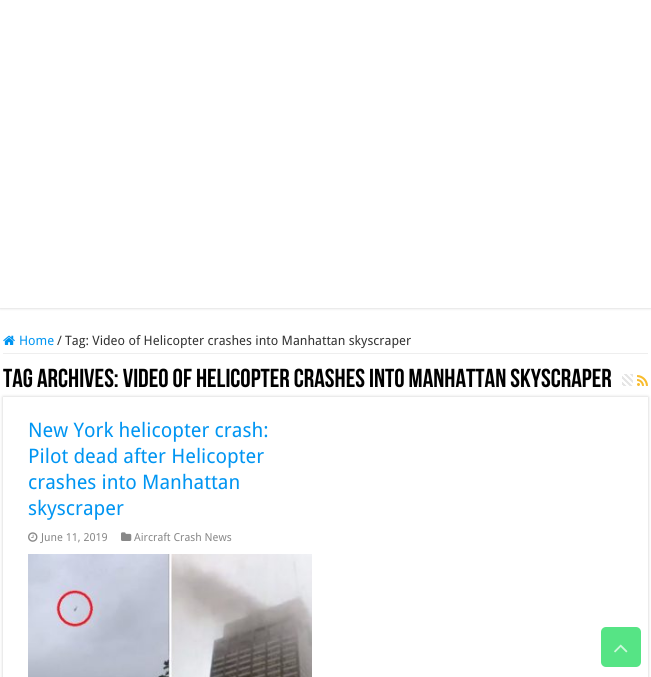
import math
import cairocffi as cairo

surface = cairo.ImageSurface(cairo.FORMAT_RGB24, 651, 677)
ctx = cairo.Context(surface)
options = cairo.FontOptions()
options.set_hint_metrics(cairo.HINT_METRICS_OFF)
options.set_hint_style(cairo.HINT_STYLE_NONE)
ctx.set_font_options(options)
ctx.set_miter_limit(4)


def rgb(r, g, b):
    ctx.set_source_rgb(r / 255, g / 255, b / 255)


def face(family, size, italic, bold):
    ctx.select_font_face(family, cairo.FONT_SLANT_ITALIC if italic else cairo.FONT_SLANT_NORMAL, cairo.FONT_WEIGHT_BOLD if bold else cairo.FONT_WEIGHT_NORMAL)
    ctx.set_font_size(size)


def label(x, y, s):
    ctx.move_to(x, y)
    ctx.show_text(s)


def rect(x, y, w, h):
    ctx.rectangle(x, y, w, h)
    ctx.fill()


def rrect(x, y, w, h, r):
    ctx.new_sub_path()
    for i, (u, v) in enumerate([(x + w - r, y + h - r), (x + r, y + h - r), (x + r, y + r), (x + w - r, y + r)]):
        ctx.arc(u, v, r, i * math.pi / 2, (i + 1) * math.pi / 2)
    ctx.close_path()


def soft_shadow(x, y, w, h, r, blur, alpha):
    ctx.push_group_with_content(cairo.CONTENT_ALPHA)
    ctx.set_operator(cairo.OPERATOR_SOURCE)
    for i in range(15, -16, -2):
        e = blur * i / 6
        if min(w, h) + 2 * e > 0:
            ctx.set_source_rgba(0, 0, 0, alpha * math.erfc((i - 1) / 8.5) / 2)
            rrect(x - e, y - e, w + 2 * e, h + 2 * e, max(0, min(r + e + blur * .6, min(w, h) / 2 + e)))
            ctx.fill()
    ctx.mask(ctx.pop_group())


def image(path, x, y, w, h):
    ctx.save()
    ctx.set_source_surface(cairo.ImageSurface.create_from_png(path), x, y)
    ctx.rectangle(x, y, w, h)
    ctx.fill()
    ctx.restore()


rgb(255, 255, 255)
ctx.paint()
ctx.save()
ctx.rectangle(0, 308, 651, 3)
ctx.clip()
rgb(202, 202, 202)
soft_shadow(0, -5, 651, 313, 0, 1.5, 1)
ctx.restore()
rgb(238, 238, 238)
rect(3, 353, 645, 1)
image('image0.png', 3, 335, 12, 10)
face('Droid Sans', 13, 0, 0)
rgb(0, 149, 242)
label(19, 345, 'Home')
rgb(51, 51, 51)
label(57, 345, '/')
label(65, 345, 'Tag: Video of Helicopter crashes into Manhattan skyscraper')
face('Bebas Neue', 26, 0, 1)
rgb(0, 0, 0)
label(3, 387, 'Tag Archives: Video of Helicopter crashes into Manhattan skyscraper')
image('image1.png', 622, 374, 11, 12)
image('image2.png', 637, 375, 11, 11)
ctx.save()
ctx.set_fill_rule(cairo.FILL_RULE_EVEN_ODD)
ctx.new_path()
ctx.move_to(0, 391)
ctx.line_to(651, 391)
ctx.line_to(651, 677)
ctx.line_to(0, 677)
ctx.close_path()
ctx.move_to(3, 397)
ctx.line_to(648, 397)
ctx.line_to(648, 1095)
ctx.line_to(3, 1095)
ctx.close_path()
ctx.clip()
rgb(202, 202, 202)
soft_shadow(3, 397, 645, 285, 0, 1.5, 1)
ctx.restore()
face('Droid Sans', 20, 0, 0)
rgb(0, 149, 242)
label(28, 437, 'New York helicopter crash:')
label(28, 463, 'Pilot dead after Helicopter')
label(28, 489, 'crashes into Manhattan')
label(28, 515, 'skyscraper')
image('image3.png', 28, 532, 10, 10)
face('Droid Sans', 11, 0, 0)
rgb(136, 136, 136)
label(41, 541, 'June 11, 2019')
image('image4.png', 121, 532, 11, 9)
label(134, 541, 'Aircraft Crash News')
image('image5.png', 28, 554, 284, 123)
rgb(86, 228, 133)
rrect(601, 627, 40, 40, 5)
ctx.fill()
image('image6.png', 614, 644, 14, 9)
surface.write_to_png('render.png')
